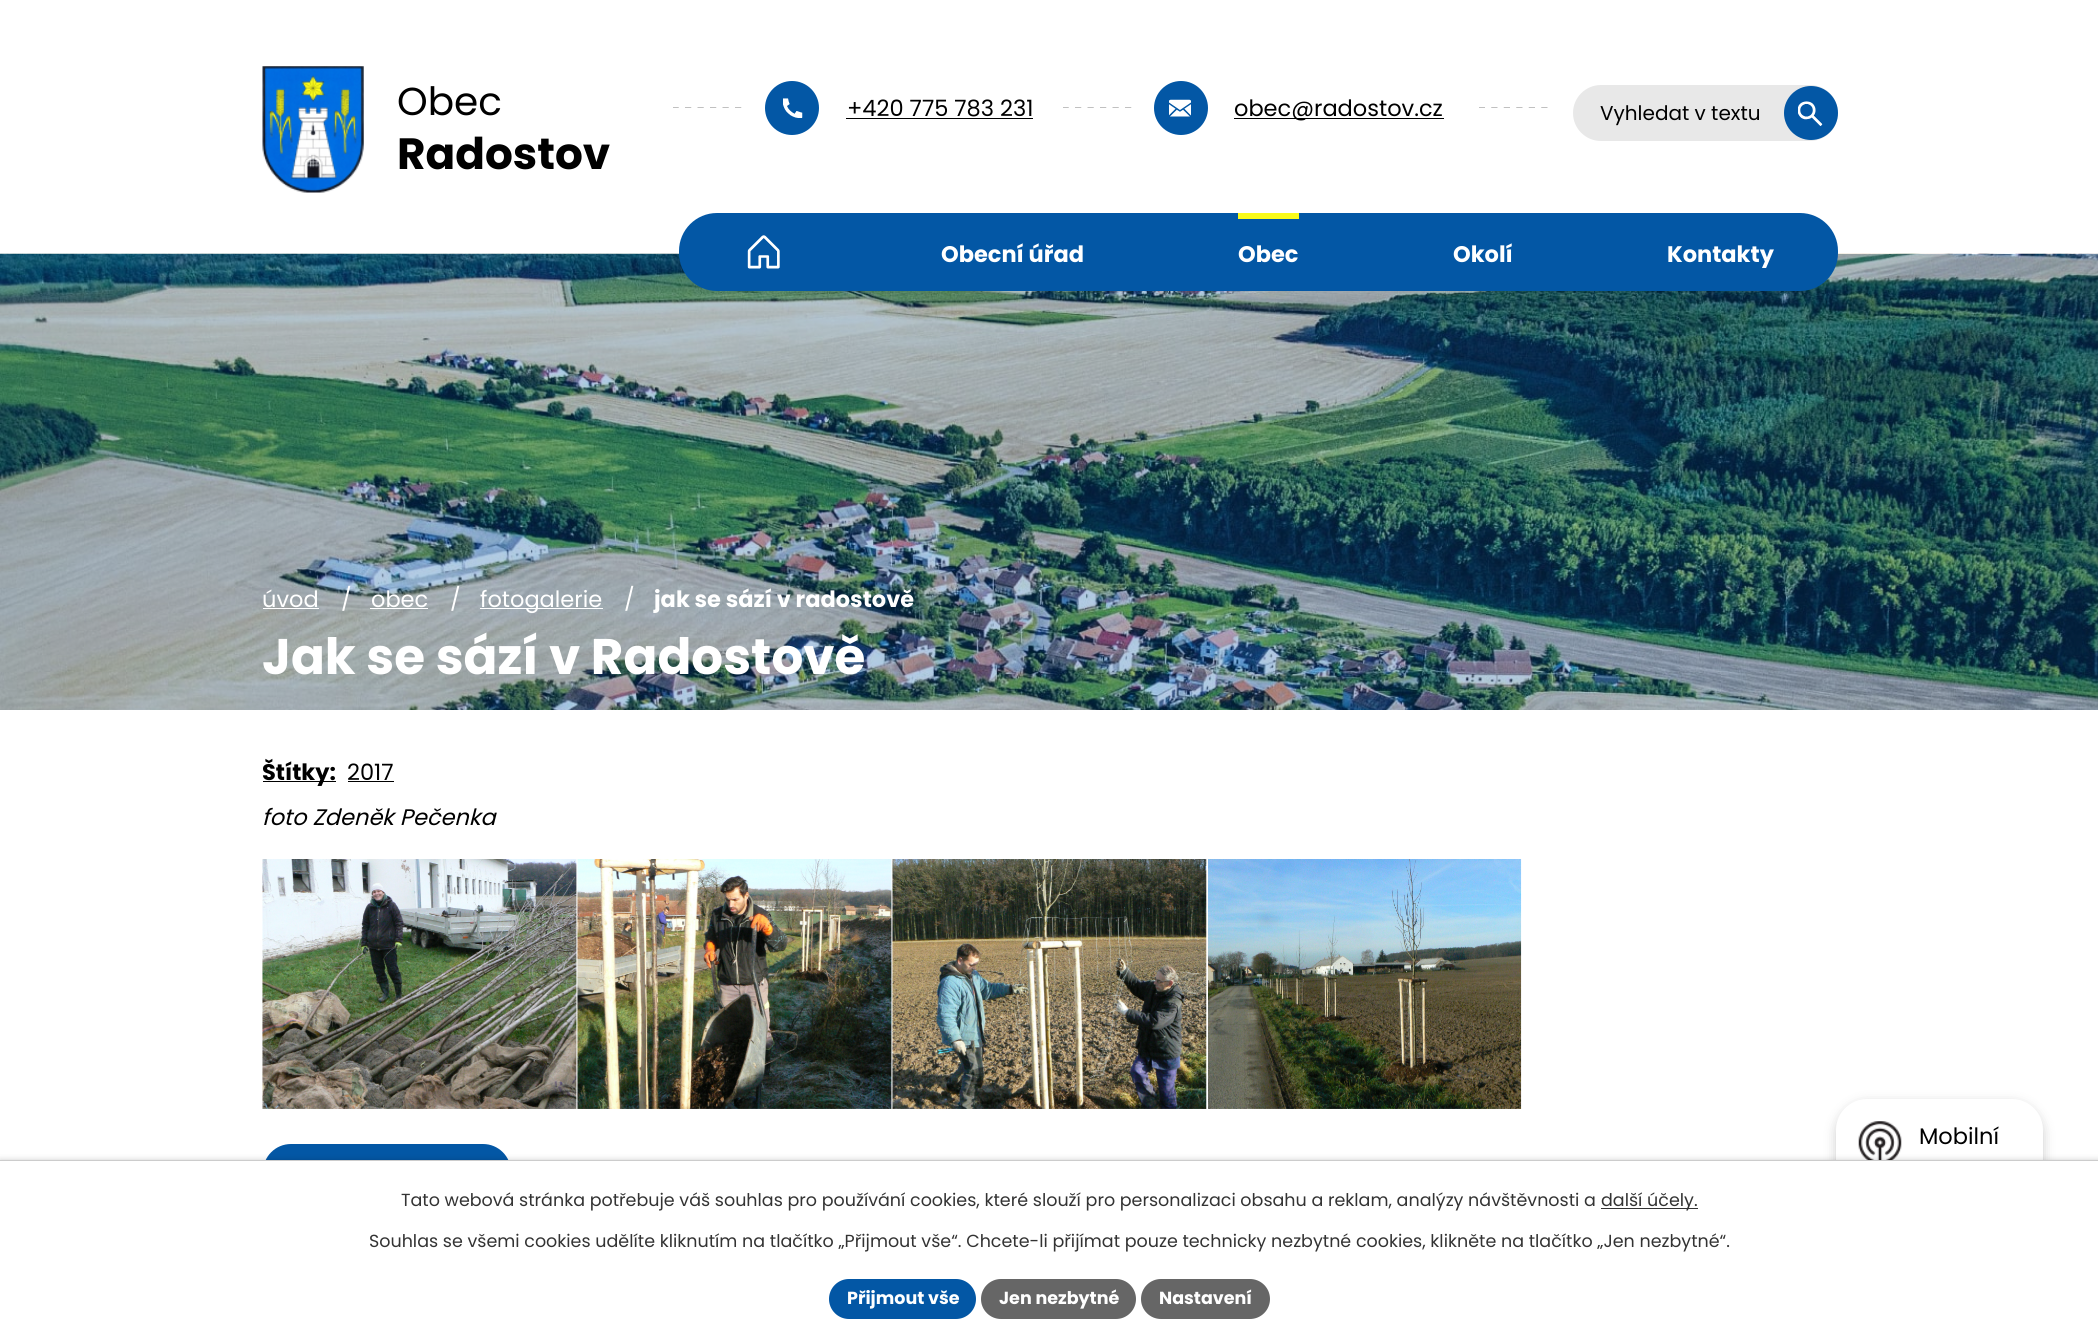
import math
import cairocffi as cairo

surface = cairo.ImageSurface(cairo.FORMAT_RGB24, 2098, 1342)
ctx = cairo.Context(surface)
options = cairo.FontOptions()
options.set_hint_metrics(cairo.HINT_METRICS_OFF)
options.set_hint_style(cairo.HINT_STYLE_NONE)
ctx.set_font_options(options)
ctx.set_miter_limit(4)


def rgb(r, g, b):
    ctx.set_source_rgb(r / 255, g / 255, b / 255)


def face(family, size, italic, bold):
    ctx.select_font_face(family, cairo.FONT_SLANT_ITALIC if italic else cairo.FONT_SLANT_NORMAL, cairo.FONT_WEIGHT_BOLD if bold else cairo.FONT_WEIGHT_NORMAL)
    ctx.set_font_size(size)


def label(x, y, s):
    ctx.move_to(x, y)
    ctx.show_text(s)


def rect(x, y, w, h):
    ctx.rectangle(x, y, w, h)
    ctx.fill()


def rrect(x, y, w, h, r):
    ctx.new_sub_path()
    for i, (u, v) in enumerate([(x + w - r, y + h - r), (x + r, y + h - r), (x + r, y + r), (x + w - r, y + r)]):
        ctx.arc(u, v, r, i * math.pi / 2, (i + 1) * math.pi / 2)
    ctx.close_path()


def soft_shadow(x, y, w, h, r, blur, alpha):
    ctx.push_group_with_content(cairo.CONTENT_ALPHA)
    ctx.set_operator(cairo.OPERATOR_SOURCE)
    for i in range(15, -16, -2):
        e = blur * i / 6
        if min(w, h) + 2 * e > 0:
            ctx.set_source_rgba(0, 0, 0, alpha * math.erfc((i - 1) / 8.5) / 2)
            rrect(x - e, y - e, w + 2 * e, h + 2 * e, max(0, min(r + e + blur * .6, min(w, h) / 2 + e)))
            ctx.fill()
    ctx.mask(ctx.pop_group())


def image(path, x, y, w, h):
    ctx.save()
    ctx.set_source_surface(cairo.ImageSurface.create_from_png(path), x, y)
    ctx.rectangle(x, y, w, h)
    ctx.fill()
    ctx.restore()


rgb(255, 255, 255)
ctx.paint()
image('image0.png', 262, 66, 102, 127)
face('Poppins', 39, 0, 0)
rgb(0, 0, 0)
label(397, 115, 'Obec')
face('Poppins', 43.75, 0, 1)
label(397, 169, 'Radostov')
image('image1.png', 673, 107, 69, 1)
rgb(3, 87, 165)
ctx.arc(792, 108, 27, 0, 2 * math.pi)
ctx.fill()
image('image2.png', 783, 98, 20, 20)
face('Poppins', 22.5, 0, 0)
rgb(0, 0, 0)
label(847, 116, '+420 775 783 231')
rect(846, 118, 187, 1)
image('image1.png', 1063, 107, 69, 1)
rgb(3, 87, 165)
ctx.arc(1181, 108, 27, 0, 2 * math.pi)
ctx.fill()
image('image3.png', 1169, 99, 22, 18)
rgb(0, 0, 0)
rect(1234, 118, 210, 1)
label(1234, 116, 'obec@radostov.cz')
image('image4.png', 1479, 107, 69, 1)
rgb(232, 232, 232)
rrect(1573, 85, 265, 56, 28)
ctx.fill()
face('Poppins', 20, 0, 0)
rgb(0, 0, 0)
label(1600, 120, 'Vyhledat v textu')
rgb(3, 87, 165)
ctx.new_path()
ctx.arc(1811, 113, 27, 0, 2 * math.pi)
ctx.fill()
image('image5.png', 1798, 101, 25, 25)
image('image7.png', 0, 253, 2098, 457)
rrect(679, 213, 1159, 78, 38)
ctx.fill()
image('image6.png', 747, 235, 33, 34)
face('Poppins', 22.5, 0, 1)
rgb(255, 255, 255)
label(941, 262, 'Obecní úřad')
rgb(250, 251, 26)
rect(1238, 213, 61, 6)
rgb(255, 255, 255)
label(1238, 262, 'Obec')
label(1453, 262, 'Okolí')
label(1667, 262, 'Kontakty')
face('Poppins', 22.5, 0, 0)
label(262, 607, 'úvod')
rect(263, 608, 56, 1)
label(341, 607, '/')
label(371, 607, 'obec')
rect(370, 608, 58, 1)
label(450, 607, '/')
rect(480, 608, 123, 1)
label(480, 607, 'fotogalerie')
label(624, 607, '/')
face('Poppins', 22.5, 0, 1)
label(654, 607, 'jak se sází v radostově')
face('Poppins', 50, 0, 1)
label(262, 674, 'Jak se sází v Radostově')
rgb(0, 0, 0)
rect(263, 781, 73, 1)
face('Poppins', 22.5, 0, 1)
label(262, 780, 'Štítky:')
face('Poppins', 22.5, 0, 0)
label(347, 780, '2017')
rect(348, 781, 46, 1)
face('Poppins', 22.5, 1, 0)
label(262, 825, 'foto Zdeněk Pečenka')
image('image8.png', 262, 859, 315, 250)
image('image9.png', 577, 859, 315, 250)
image('image10.png', 892, 859, 315, 250)
image('image11.png', 1208, 859, 314, 250)
rgb(3, 87, 165)
rrect(263, 1144, 248, 56, 28)
ctx.fill()
rgb(0, 0, 0)
soft_shadow(1836, 1103, 207, 187, 31, 6, 0.2)
rgb(255, 255, 255)
rrect(1836, 1099, 207, 187, 31)
ctx.fill()
image('image12.png', 1858, 1121, 44, 39)
face('Poppins', 22.5, 0, 0)
rgb(0, 0, 0)
label(1919, 1144, 'Mobilní')
rgb(0, 0, 0)
soft_shadow(0, 1160, 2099, 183, 0, 3, 0.2)
rgb(255, 255, 255)
rect(0, 1161, 2098, 181)
rgb(204, 204, 204)
rect(0, 1160, 2098, 1)
face('Poppins', 17.5, 0, 0)
rgb(51, 51, 51)
label(401, 1206, 'Tato webová stránka potřebuje váš souhlas pro používání cookies, které slouží pro personalizaci obsahu a reklam, analýzy návštěvnosti a')
rect(1601, 1208, 97, 1)
label(1601, 1206, 'další účely.')
label(369, 1247, 'Souhlas se všemi cookies udělíte kliknutím na tlačítko „Přijmout vše“. Chcete-li přijímat pouze technicky nezbytné cookies, klikněte na tlačítko „Jen nezbytné“.')
rgb(3, 87, 165)
rrect(829, 1279, 147, 40, 20)
ctx.fill()
face('Poppins', 17.5, 0, 1)
rgb(255, 255, 255)
label(847, 1304, 'Přijmout vše')
rgb(102, 102, 102)
rrect(981, 1279, 155, 40, 20)
ctx.fill()
rgb(255, 255, 255)
label(999, 1304, 'Jen nezbytné')
rgb(102, 102, 102)
rrect(1141, 1279, 129, 40, 20)
ctx.fill()
rgb(255, 255, 255)
label(1159, 1304, 'Nastavení')
surface.write_to_png('render.png')
